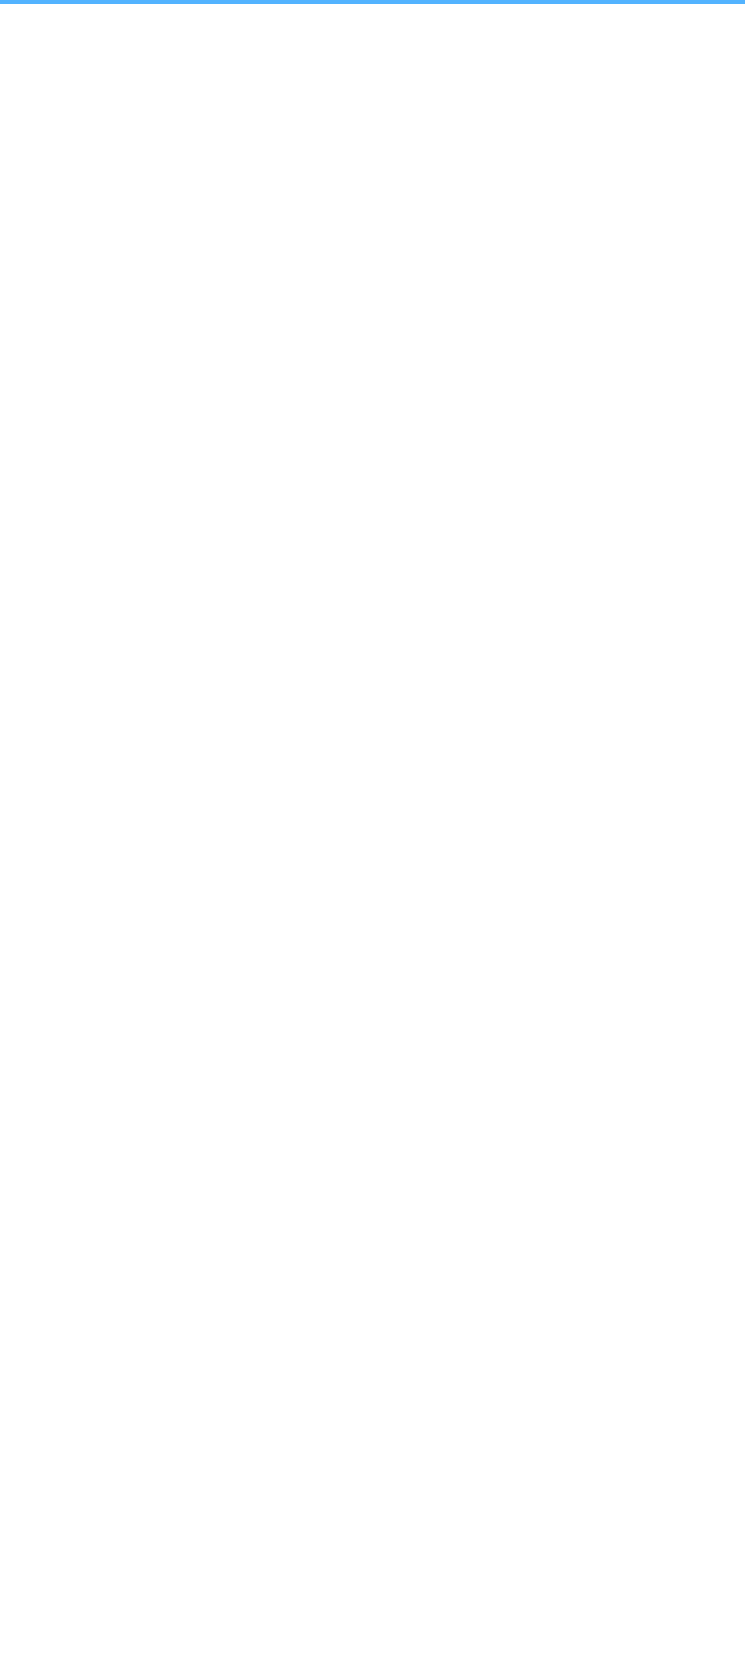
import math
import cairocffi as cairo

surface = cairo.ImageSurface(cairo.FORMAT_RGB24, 745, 1678)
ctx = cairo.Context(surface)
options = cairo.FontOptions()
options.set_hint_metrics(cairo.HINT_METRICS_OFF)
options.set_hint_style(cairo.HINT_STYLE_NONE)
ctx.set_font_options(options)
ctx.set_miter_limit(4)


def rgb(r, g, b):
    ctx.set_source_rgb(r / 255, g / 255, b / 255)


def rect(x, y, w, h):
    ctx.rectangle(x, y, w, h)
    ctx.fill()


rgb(255, 255, 255)
ctx.paint()
rgb(82, 179, 255)
rect(0, 0, 745, 4)
surface.write_to_png('render.png')
